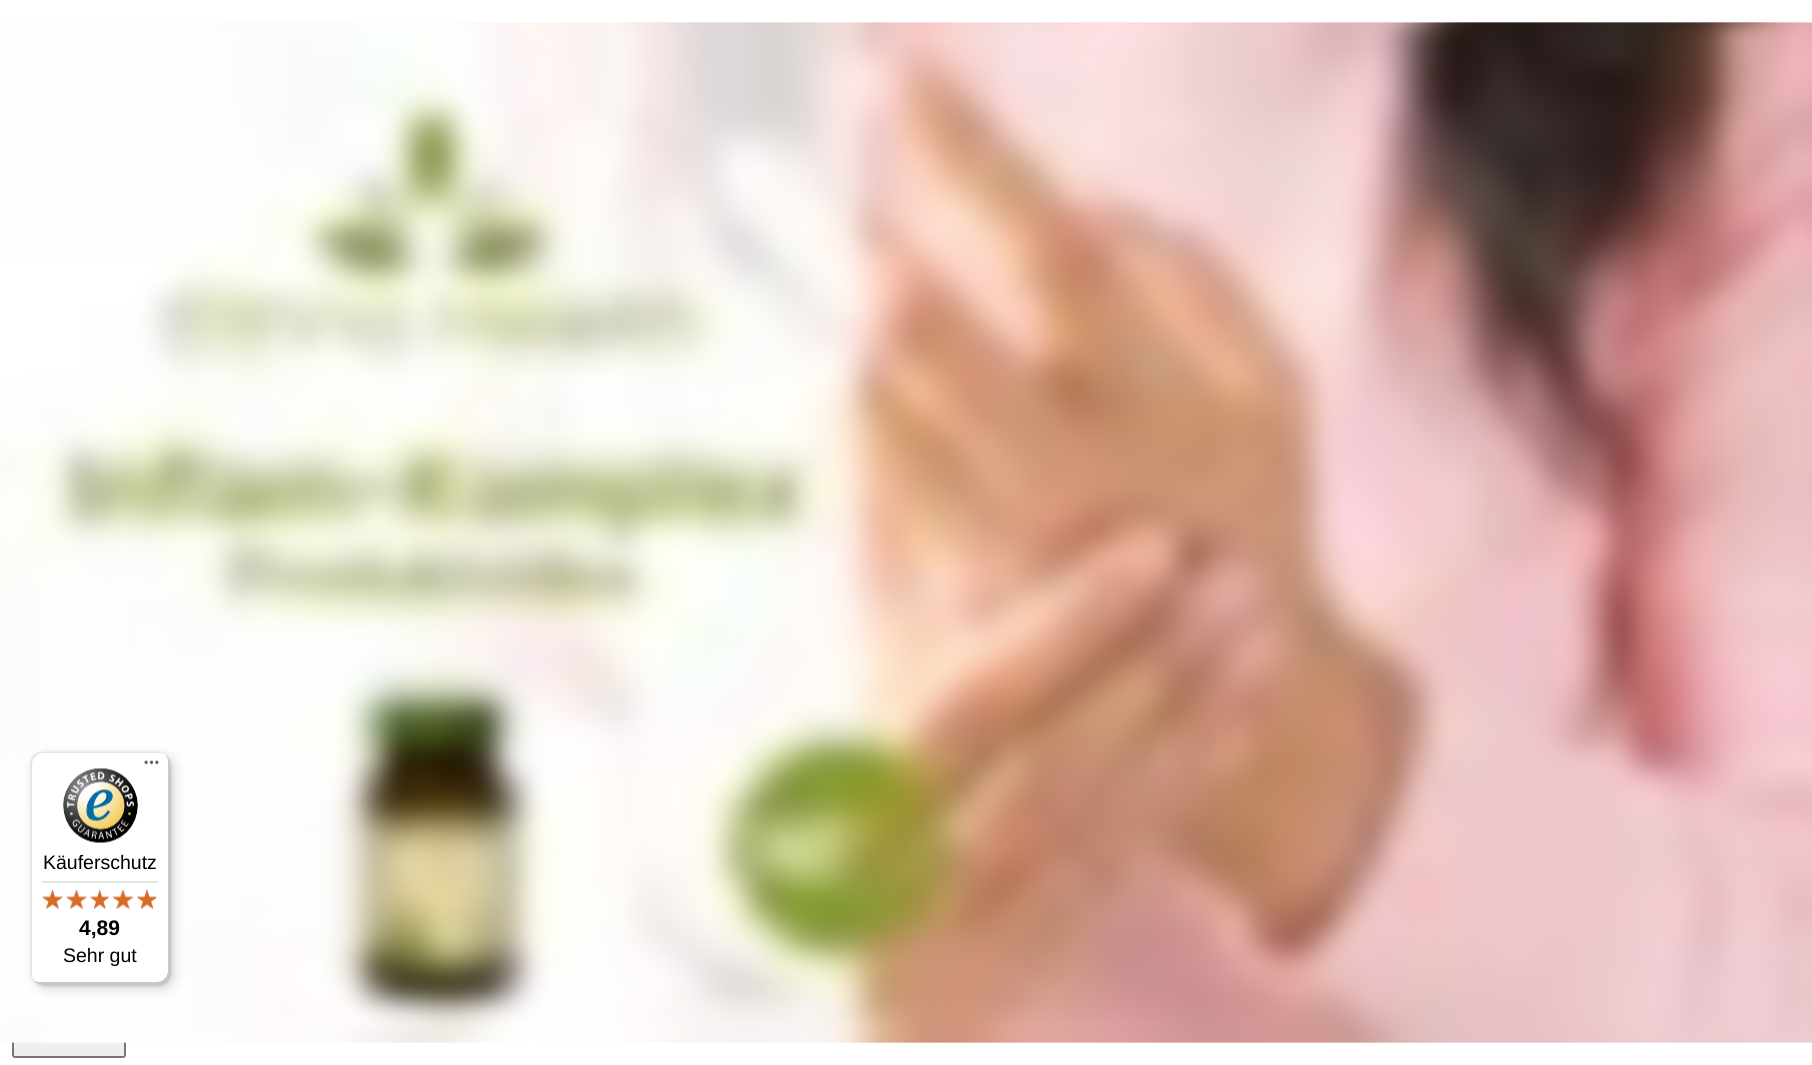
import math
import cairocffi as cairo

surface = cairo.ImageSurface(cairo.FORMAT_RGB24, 1812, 1065)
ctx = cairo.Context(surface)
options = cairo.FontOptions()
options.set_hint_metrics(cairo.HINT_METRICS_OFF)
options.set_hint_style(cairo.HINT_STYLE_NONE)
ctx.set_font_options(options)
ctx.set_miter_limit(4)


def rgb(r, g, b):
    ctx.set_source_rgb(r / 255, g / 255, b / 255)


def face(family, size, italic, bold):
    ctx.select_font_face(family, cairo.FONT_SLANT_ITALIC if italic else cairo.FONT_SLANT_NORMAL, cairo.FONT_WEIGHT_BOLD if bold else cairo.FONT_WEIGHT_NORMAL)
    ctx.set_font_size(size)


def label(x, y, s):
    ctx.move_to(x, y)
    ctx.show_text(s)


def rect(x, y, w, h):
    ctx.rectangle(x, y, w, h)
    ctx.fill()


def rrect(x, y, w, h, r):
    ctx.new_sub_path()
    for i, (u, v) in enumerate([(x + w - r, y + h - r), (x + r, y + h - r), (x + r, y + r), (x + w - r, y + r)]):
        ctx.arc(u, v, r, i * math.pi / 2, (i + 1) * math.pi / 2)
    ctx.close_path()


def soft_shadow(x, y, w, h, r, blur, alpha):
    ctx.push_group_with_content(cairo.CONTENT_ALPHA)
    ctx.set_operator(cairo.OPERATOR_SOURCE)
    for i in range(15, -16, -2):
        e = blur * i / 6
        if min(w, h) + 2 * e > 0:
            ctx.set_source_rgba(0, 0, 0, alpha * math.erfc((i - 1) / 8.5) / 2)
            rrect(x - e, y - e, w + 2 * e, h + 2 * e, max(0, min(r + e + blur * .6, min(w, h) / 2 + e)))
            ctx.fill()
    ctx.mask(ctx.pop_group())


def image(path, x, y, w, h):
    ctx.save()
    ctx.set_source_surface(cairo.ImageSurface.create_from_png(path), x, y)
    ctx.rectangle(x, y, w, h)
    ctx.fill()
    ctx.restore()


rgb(255, 255, 255)
ctx.paint()
rgb(239, 239, 239)
rrect(13, 1027, 112, 30, 2)
ctx.fill_preserve()
rgb(118, 118, 118)
ctx.stroke()
image('image0.png', 0, 22, 1812, 1021)
rgb(0, 0, 0)
soft_shadow(35, 756, 139, 233, 12, 6, 0.15)
soft_shadow(32, 753, 139, 233, 12, 1.5, 0.15)
rgb(255, 255, 255)
rrect(30, 752, 140, 232, 12)
ctx.fill()
ctx.set_source_rgba(0, 0, 0, 0.1)
ctx.new_path()
ctx.move_to(44, 753)
ctx.line_to(159, 753)
ctx.curve_to(162, 753, 164, 754, 166, 755)
ctx.curve_to(164, 753, 161, 752, 158, 752)
ctx.line_to(42, 752)
ctx.curve_to(35, 752, 30, 757, 30, 764)
ctx.line_to(30, 972)
ctx.curve_to(30, 976, 32, 979, 35, 982)
ctx.curve_to(33, 979, 32, 977, 32, 974)
ctx.line_to(32, 765)
ctx.curve_to(32, 758, 37, 753, 44, 753)
ctx.close_path()
ctx.fill()
ctx.set_source_rgba(0, 0, 0, 0.2)
ctx.new_path()
ctx.move_to(32, 979)
ctx.curve_to(35, 982, 38, 984, 42, 984)
ctx.line_to(158, 984)
ctx.curve_to(165, 984, 170, 979, 170, 972)
ctx.line_to(170, 764)
ctx.curve_to(170, 760, 168, 757, 166, 755)
ctx.curve_to(167, 757, 168, 759, 168, 762)
ctx.line_to(168, 970)
ctx.curve_to(168, 977, 163, 982, 156, 982)
ctx.line_to(40, 982)
ctx.curve_to(37, 982, 35, 981, 32, 979)
ctx.close_path()
ctx.fill()
ctx.set_source_rgba(0.196, 0.196, 0.196, 0.2)
ctx.new_path()
ctx.move_to(34, 981)
ctx.curve_to(36, 983, 39, 984, 42, 984)
ctx.line_to(158, 984)
ctx.curve_to(165, 984, 170, 979, 170, 972)
ctx.line_to(170, 764)
ctx.curve_to(170, 760, 168, 757, 166, 755)
ctx.curve_to(168, 757, 169, 760, 169, 763)
ctx.line_to(169, 971)
ctx.curve_to(169, 978, 163, 983, 157, 983)
ctx.line_to(41, 983)
ctx.curve_to(38, 983, 36, 982, 34, 981)
ctx.close_path()
ctx.fill()
ctx.set_source_rgba(1, 1, 1, 0.3)
ctx.new_path()
ctx.move_to(33, 980)
ctx.curve_to(35, 982, 38, 984, 42, 984)
ctx.line_to(158, 984)
ctx.curve_to(165, 984, 170, 979, 170, 972)
ctx.line_to(170, 764)
ctx.curve_to(170, 760, 168, 757, 166, 755)
ctx.curve_to(168, 757, 169, 760, 169, 763)
ctx.line_to(169, 971)
ctx.curve_to(169, 978, 163, 983, 157, 983)
ctx.line_to(41, 983)
ctx.curve_to(38, 983, 35, 982, 33, 980)
ctx.close_path()
ctx.fill()
image('image1.png', 144, 760, 15, 5)
image('image2.png', 63, 768, 75, 75)
face('Liberation Sans', 19.5, 0, 0)
rgb(0, 0, 0)
label(43, 869, 'Käuferschutz')
rgb(229, 229, 229)
rect(42, 881, 116, 2)
image('image3.png', 42, 889, 21, 20)
image('image4.png', 66, 890, 21, 19)
image('image5.png', 90, 889, 19, 20)
image('image6.png', 113, 890, 20, 19)
image('image7.png', 137, 889, 20, 20)
image('image8.png', 42, 889, 21, 20)
image('image9.png', 66, 889, 21, 20)
image('image10.png', 90, 889, 19, 20)
image('image11.png', 112, 889, 22, 20)
image('image12.png', 137, 889, 19, 20)
face('Liberation Sans', 21, 0, 1)
rgb(0, 0, 0)
label(79, 935, '4,89')
face('Liberation Sans', 19.5, 0, 0)
label(63, 962, 'Sehr gut')
surface.write_to_png('render.png')
